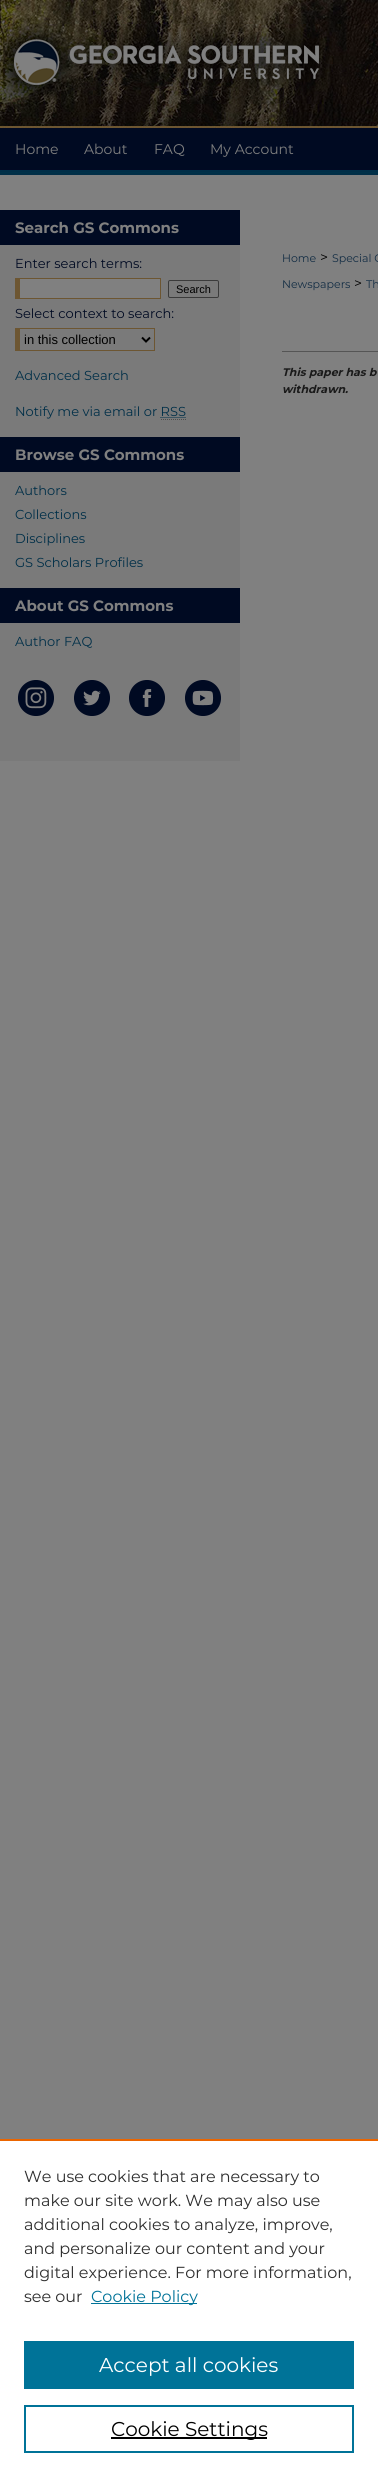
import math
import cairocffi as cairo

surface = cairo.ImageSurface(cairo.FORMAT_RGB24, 378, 2477)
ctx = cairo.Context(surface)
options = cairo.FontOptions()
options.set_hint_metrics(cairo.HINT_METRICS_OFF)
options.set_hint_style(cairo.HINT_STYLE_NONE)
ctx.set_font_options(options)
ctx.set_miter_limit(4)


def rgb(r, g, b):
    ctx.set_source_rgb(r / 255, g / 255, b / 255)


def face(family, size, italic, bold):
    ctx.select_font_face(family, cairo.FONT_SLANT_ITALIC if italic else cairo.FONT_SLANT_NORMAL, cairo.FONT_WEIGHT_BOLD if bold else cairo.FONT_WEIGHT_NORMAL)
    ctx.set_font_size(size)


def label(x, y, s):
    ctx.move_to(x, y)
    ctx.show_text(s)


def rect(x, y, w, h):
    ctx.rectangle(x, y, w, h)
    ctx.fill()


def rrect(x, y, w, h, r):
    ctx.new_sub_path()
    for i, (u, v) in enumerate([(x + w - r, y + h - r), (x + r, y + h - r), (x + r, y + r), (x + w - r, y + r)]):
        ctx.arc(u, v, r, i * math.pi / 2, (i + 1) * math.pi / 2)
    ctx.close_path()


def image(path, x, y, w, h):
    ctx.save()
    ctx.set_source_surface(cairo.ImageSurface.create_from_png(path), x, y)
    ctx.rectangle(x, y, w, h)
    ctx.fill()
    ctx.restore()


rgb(128, 128, 128)
ctx.paint()
image('image0.png', 0, 0, 378, 175)
image('image1.png', 3, 19, 327, 85)
image('image2.png', 3, 19, 317, 85)
face('Montserrat', 14, 0, 0)
rgb(128, 128, 128)
label(15, 154, 'Home')
label(84, 154, 'About')
label(154, 154, 'FAQ')
label(210, 154, 'My Account')
rgb(122, 122, 122)
rect(0, 245, 240, 516)
rgb(0, 10, 34)
rect(0, 210, 240, 35)
face('Montserrat', 15, 0, 1)
rgb(128, 128, 128)
label(15, 233, 'Search GS Commons')
face('Montserrat', 13, 0, 0)
rgb(0, 10, 34)
label(15, 268, 'Enter search terms:')
rgb(128, 128, 128)
rect(20, 279, 140, 19)
rgb(109, 86, 50)
rect(15, 278, 146, 1)
rect(160, 278, 1, 21)
rect(15, 298, 146, 1)
rect(15, 278, 5, 21)
rrect(168.5, 280.5, 50, 17, 1.5)
rgb(59, 59, 59)
ctx.set_line_width(1)
ctx.stroke()
face('Liberation Sans', 11, 0, 0)
rgb(0, 0, 0)
label(176, 293, 'Search')
face('Montserrat', 13, 0, 0)
rgb(0, 10, 34)
label(15, 318, 'Select context to search:')
rgb(109, 86, 50)
rect(15, 328, 140, 1)
rect(154, 328, 1, 23)
rect(15, 350, 140, 1)
rect(15, 328, 5, 23)
ctx.new_path()
ctx.move_to(142, 337.5)
ctx.line_to(146, 341.5)
ctx.line_to(150, 337.5)
rgb(0, 0, 0)
ctx.set_line_width(2)
ctx.stroke()
face('Liberation Sans', 13, 0, 0)
label(24, 344, 'in this collection')
face('Montserrat', 13, 0, 0)
rgb(0, 47, 72)
label(15, 380, 'Advanced Search')
label(15, 416, 'Notify me via email or RSS')
ctx.new_path()
ctx.move_to(160.5, 417.5)
ctx.line_to(186, 417.5)
ctx.set_line_width(1)
ctx.set_dash([1, 1])
ctx.stroke()
ctx.new_path()
ctx.move_to(161, 419.5)
ctx.line_to(186, 419.5)
rgb(77, 77, 77)
ctx.stroke()
rgb(0, 10, 34)
rect(0, 437, 240, 35)
face('Montserrat', 15, 0, 1)
rgb(128, 128, 128)
label(15, 460, 'Browse GS Commons')
face('Montserrat', 13, 0, 0)
rgb(0, 47, 72)
label(15, 495, 'Authors')
label(15, 519, 'Collections')
label(15, 543, 'Disciplines')
label(15, 567, 'GS Scholars Profiles')
rgb(0, 10, 34)
rect(0, 588, 240, 35)
face('Montserrat', 15, 0, 1)
rgb(128, 128, 128)
label(15, 611, 'About GS Commons')
face('Montserrat', 13, 0, 0)
rgb(0, 47, 72)
label(15, 646, 'Author FAQ')
image('image3.png', 18, 680, 36, 36)
image('image4.png', 74, 680, 36, 36)
image('image5.png', 129, 680, 36, 36)
image('image6.png', 185, 680, 36, 36)
face('Montserrat', 11, 0, 0)
rgb(19, 45, 68)
label(282, 262, 'Home')
face('Montserrat', 14, 0, 0)
rgb(0, 0, 0)
label(320, 262, '>')
face('Montserrat', 11, 0, 0)
rgb(19, 45, 68)
label(332, 262, 'Special C')
label(282, 288, 'Newspapers')
face('Montserrat', 14, 0, 0)
rgb(0, 0, 0)
label(354, 288, '>')
face('Montserrat', 11, 0, 0)
rgb(19, 45, 68)
label(366, 288, 'Th')
rgb(85, 85, 85)
rect(282, 351, 96, 1)
face('Montserrat', 11, 1, 1)
rgb(26, 26, 26)
label(282, 376, 'This paper has b')
label(282, 393, 'withdrawn.')
rgb(255, 255, 255)
rect(0, 2141, 378, 336)
rgb(235, 101, 0)
rect(0, 2139, 378, 2)
face('Montserrat', 16, 0, 0)
rgb(46, 46, 46)
label(24, 2182, 'We use cookies that are necessary to')
label(24, 2206, 'make our site work. We may also use')
label(24, 2230, 'additional cookies to analyze, improve,')
label(24, 2254, 'and personalize our content and your')
label(24, 2278, 'digital experience. For more information,')
label(24, 2302, 'see our')
rgb(0, 115, 152)
rect(91, 2303, 106, 1)
label(91, 2302, 'Cookie Policy')
rect(24, 2341, 330, 48)
face('Montserrat', 20, 0, 0)
rgb(255, 255, 255)
label(99, 2372, 'Accept all cookies')
ctx.rectangle(25, 2406, 328, 46)
rgb(0, 115, 152)
ctx.set_line_width(2)
ctx.set_dash([])
ctx.stroke()
rgb(0, 0, 0)
rect(111, 2437, 156, 2)
label(111, 2436, 'Cookie Settings')
surface.write_to_png('render.png')
